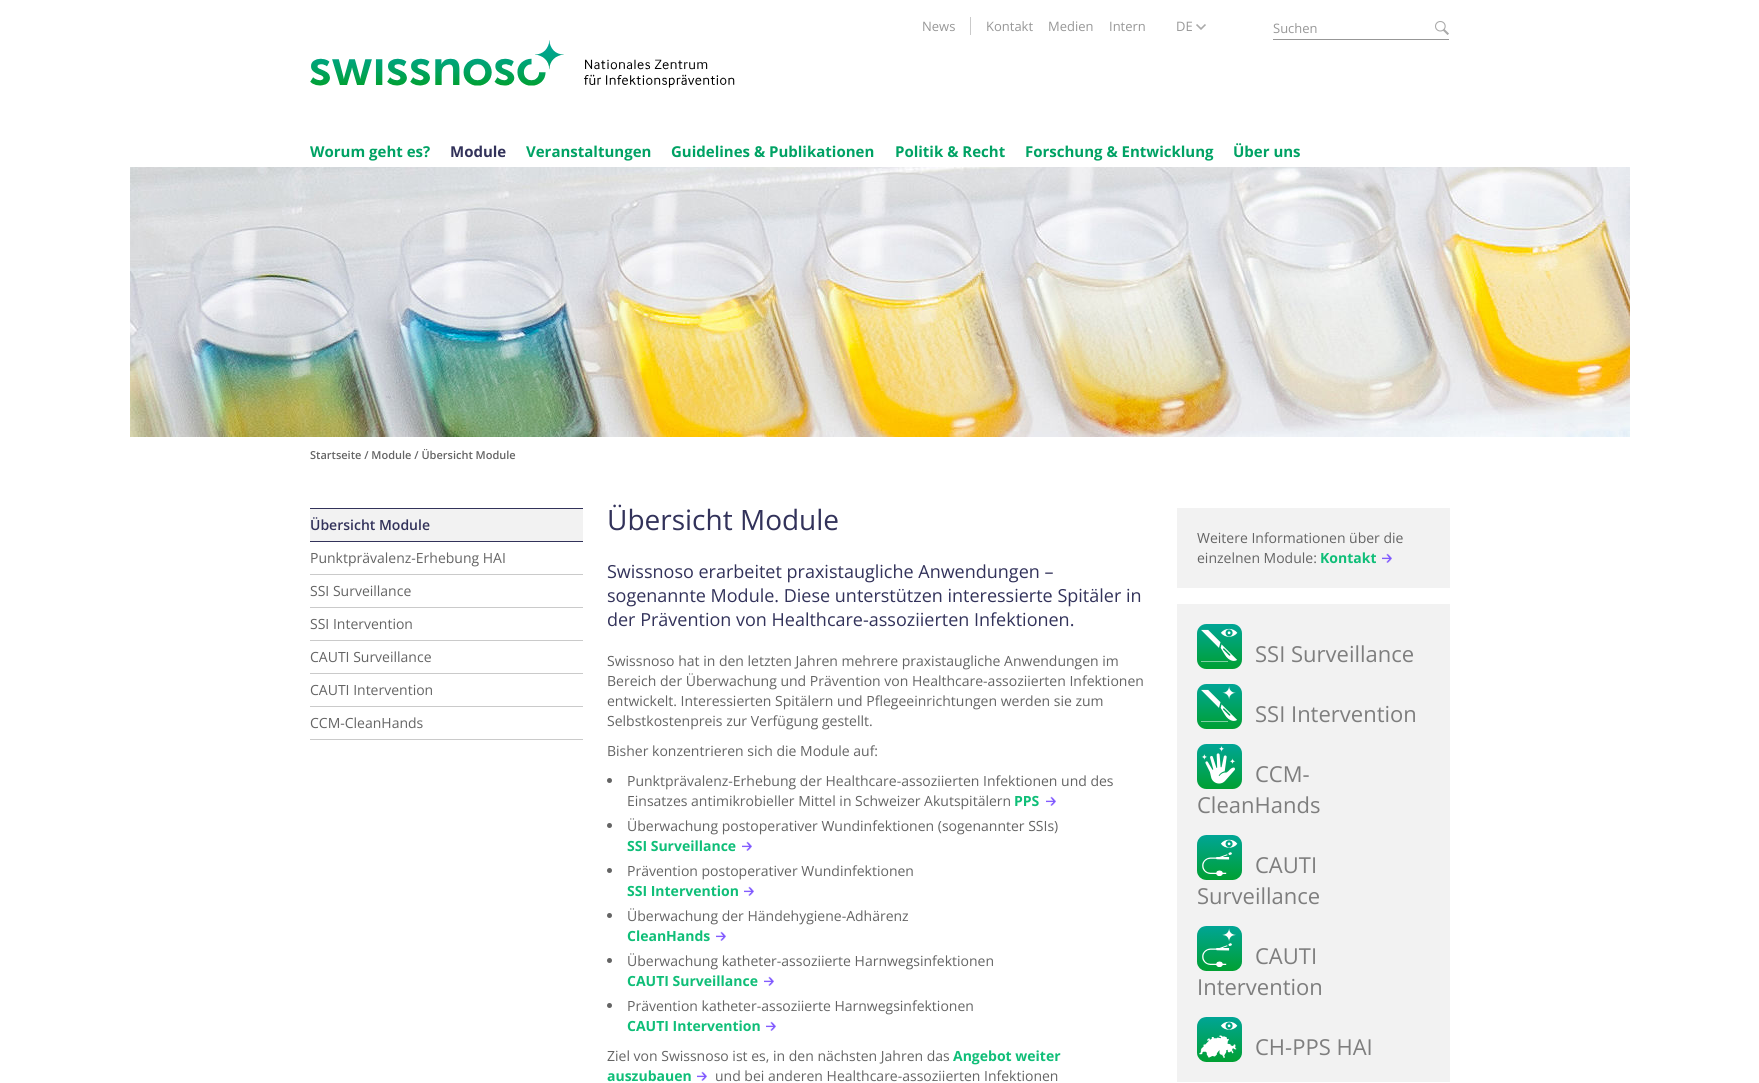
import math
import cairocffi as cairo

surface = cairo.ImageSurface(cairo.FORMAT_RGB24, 1759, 1083)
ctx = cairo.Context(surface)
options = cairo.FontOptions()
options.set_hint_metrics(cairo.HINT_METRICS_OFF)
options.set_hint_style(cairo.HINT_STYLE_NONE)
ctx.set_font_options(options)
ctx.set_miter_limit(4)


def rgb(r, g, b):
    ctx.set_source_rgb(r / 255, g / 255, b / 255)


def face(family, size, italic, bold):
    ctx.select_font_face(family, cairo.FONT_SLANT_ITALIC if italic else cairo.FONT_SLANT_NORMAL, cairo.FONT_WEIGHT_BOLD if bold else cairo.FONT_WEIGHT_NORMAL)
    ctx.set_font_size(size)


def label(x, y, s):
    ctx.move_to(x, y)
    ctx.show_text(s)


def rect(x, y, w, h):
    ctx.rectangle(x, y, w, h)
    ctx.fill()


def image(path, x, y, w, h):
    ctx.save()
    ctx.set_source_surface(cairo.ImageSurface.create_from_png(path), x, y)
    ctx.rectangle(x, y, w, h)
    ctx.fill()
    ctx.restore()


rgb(255, 255, 255)
ctx.paint()
rgb(202, 202, 202)
rect(970, 17, 1, 18)
face('Open Sans', 13, 0, 0)
rgb(151, 151, 151)
label(922, 31, 'News')
label(986, 31, 'Kontakt')
label(1048, 31, 'Medien')
label(1109, 31, 'Intern')
image('image0.png', 1196, 24, 10, 6)
label(1176, 31, 'DE')
rect(1273, 39, 176, 1)
label(1273, 33, 'Suchen')
image('image1.png', 1435, 21, 14, 14)
image('image2.png', 310, 40, 425, 48)
face('Open Sans', 15, 0, 1)
rgb(0, 162, 100)
label(310, 157, 'Worum geht es?')
rgb(50, 50, 90)
label(450, 157, 'Module')
rgb(0, 162, 100)
label(526, 157, 'Veranstaltungen')
label(671, 157, 'Guidelines & Publikationen')
label(895, 157, 'Politik & Recht')
label(1025, 157, 'Forschung & Entwicklung')
label(1233, 157, 'Über uns')
image('image3.png', 130, 167, 1500, 270)
face('Open Sans SemiBold', 11, 0, 0)
rgb(100, 100, 100)
label(310, 459, 'Startseite / Module / Übersicht Module')
rgb(50, 50, 90)
rect(310, 508, 273, 1)
rect(310, 541, 273, 1)
rgb(242, 242, 242)
rect(310, 509, 273, 32)
face('Open Sans SemiBold', 14, 0, 0)
rgb(50, 50, 90)
label(310, 530, 'Übersicht Module')
face('Open Sans', 14, 0, 0)
rgb(100, 100, 100)
label(310, 563, 'Punktprävalenz-Erhebung HAI')
rgb(202, 202, 202)
rect(310, 574, 273, 1)
rgb(100, 100, 100)
label(310, 596, 'SSI Surveillance')
rgb(202, 202, 202)
rect(310, 607, 273, 1)
rgb(100, 100, 100)
label(310, 629, 'SSI Intervention')
rgb(202, 202, 202)
rect(310, 640, 273, 1)
rgb(100, 100, 100)
label(310, 662, 'CAUTI Surveillance')
rgb(202, 202, 202)
rect(310, 673, 273, 1)
rgb(100, 100, 100)
label(310, 695, 'CAUTI Intervention')
rgb(202, 202, 202)
rect(310, 706, 273, 1)
rect(310, 739, 273, 1)
rgb(100, 100, 100)
label(310, 728, 'CCM-CleanHands')
face('Open Sans', 28, 0, 0)
rgb(50, 50, 90)
label(607, 530, 'Übersicht Module')
face('Open Sans', 18, 0, 0)
label(607, 578, 'Swissnoso erarbeitet praxistaugliche Anwendungen –')
label(607, 602, 'sogenannte Module. Diese unterstützen interessierte Spitäler in')
label(607, 626, 'der Prävention von Healthcare-assoziierten Infektionen.')
face('Open Sans', 14, 0, 0)
rgb(100, 100, 100)
label(607, 666, 'Swissnoso hat in den letzten Jahren mehrere praxistaugliche Anwendungen im')
label(607, 686, 'Bereich der Überwachung und Prävention von Healthcare-assoziierten Infektionen')
label(607, 706, 'entwickelt. Interessierten Spitälern und Pflegeeinrichtungen werden sie zum')
label(607, 726, 'Selbstkostenpreis zur Verfügung gestellt.')
label(607, 756, 'Bisher konzentrieren sich die Module auf:')
ctx.new_path()
ctx.arc(609.5, 780.5, 2.5, 0, 2 * math.pi)
ctx.fill()
label(627, 786, 'Punktprävalenz-Erhebung der Healthcare-assoziierten Infektionen und des')
label(627, 806, 'Einsatzes antimikrobieller Mittel in Schweizer Akutspitälern')
face('Open Sans', 14, 0, 1)
rgb(15, 190, 120)
label(1014, 806, 'PPS')
image('image4.png', 1046, 796, 10, 10)
rgb(100, 100, 100)
ctx.arc(609.5, 825.5, 2.5, 0, 2 * math.pi)
ctx.fill()
face('Open Sans', 14, 0, 0)
label(627, 831, 'Überwachung postoperativer Wundinfektionen (sogenannter SSIs)')
face('Open Sans', 14, 0, 1)
rgb(15, 190, 120)
label(627, 851, 'SSI Surveillance')
image('image4.png', 742, 841, 10, 10)
rgb(100, 100, 100)
ctx.arc(609.5, 870.5, 2.5, 0, 2 * math.pi)
ctx.fill()
face('Open Sans', 14, 0, 0)
label(627, 876, 'Prävention postoperativer Wundinfektionen')
face('Open Sans', 14, 0, 1)
rgb(15, 190, 120)
label(627, 896, 'SSI Intervention')
image('image4.png', 744, 886, 10, 10)
rgb(100, 100, 100)
ctx.arc(609.5, 915.5, 2.5, 0, 2 * math.pi)
ctx.fill()
face('Open Sans', 14, 0, 0)
label(627, 921, 'Überwachung der Händehygiene-Adhärenz')
face('Open Sans', 14, 0, 1)
rgb(15, 190, 120)
label(627, 941, 'CleanHands')
image('image4.png', 716, 931, 10, 10)
rgb(100, 100, 100)
ctx.arc(609.5, 960.5, 2.5, 0, 2 * math.pi)
ctx.fill()
face('Open Sans', 14, 0, 0)
label(627, 966, 'Überwachung katheter-assoziierte Harnwegsinfektionen')
face('Open Sans', 14, 0, 1)
rgb(15, 190, 120)
label(627, 986, 'CAUTI Surveillance')
image('image4.png', 764, 976, 10, 10)
rgb(100, 100, 100)
ctx.arc(609.5, 1005.5, 2.5, 0, 2 * math.pi)
ctx.fill()
face('Open Sans', 14, 0, 0)
label(627, 1011, 'Prävention katheter-assoziierte Harnwegsinfektionen')
face('Open Sans', 14, 0, 1)
rgb(15, 190, 120)
label(627, 1031, 'CAUTI Intervention')
image('image4.png', 766, 1021, 10, 10)
face('Open Sans', 14, 0, 0)
rgb(100, 100, 100)
label(607, 1061, 'Ziel von Swissnoso ist es, in den nächsten Jahren das')
face('Open Sans', 14, 0, 1)
rgb(15, 190, 120)
label(953, 1061, 'Angebot weiter')
label(607, 1081, 'auszubauen')
image('image4.png', 697, 1071, 10, 10)
face('Open Sans', 14, 0, 0)
rgb(100, 100, 100)
label(715, 1081, 'und bei anderen Healthcare-assoziierten Infektionen')
rgb(242, 242, 242)
rect(1177, 508, 273, 80)
rgb(100, 100, 100)
label(1197, 543, 'Weitere Informationen über die')
label(1197, 563, 'einzelnen Module:')
face('Open Sans', 14, 0, 1)
rgb(15, 190, 120)
label(1320, 563, 'Kontakt')
image('image5.png', 1382, 553, 10, 10)
rgb(242, 242, 242)
rect(1177, 604, 273, 478)
image('image6.png', 1197, 624, 45, 45)
face('Open Sans', 22, 0, 0)
rgb(126, 126, 126)
label(1255, 662, 'SSI Surveillance')
image('image7.png', 1197, 684, 45, 45)
label(1255, 722, 'SSI Intervention')
image('image8.png', 1197, 744, 45, 45)
label(1255, 782, 'CCM-')
label(1197, 813, 'CleanHands')
image('image9.png', 1197, 835, 45, 45)
label(1255, 873, 'CAUTI')
label(1197, 904, 'Surveillance')
image('image10.png', 1197, 926, 45, 45)
label(1255, 964, 'CAUTI')
label(1197, 995, 'Intervention')
image('image11.png', 1197, 1017, 45, 45)
label(1255, 1055, 'CH-PPS HAI')
surface.write_to_png('render.png')
